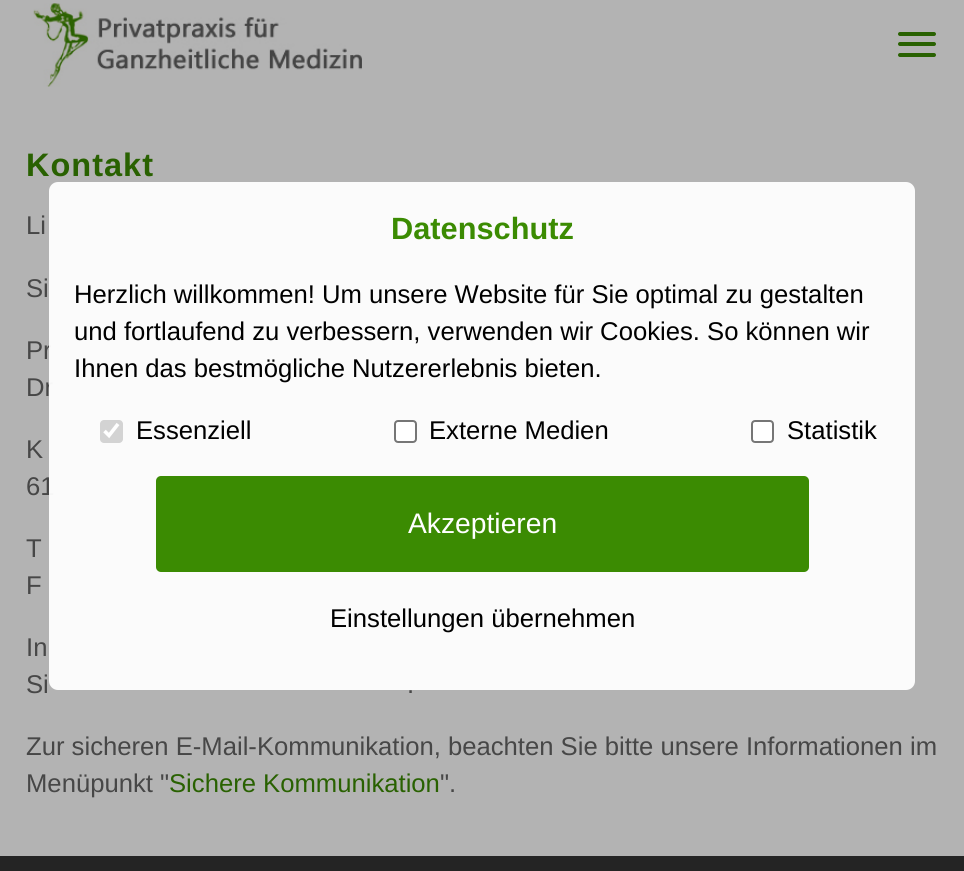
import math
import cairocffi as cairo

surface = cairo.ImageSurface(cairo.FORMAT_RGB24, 964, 871)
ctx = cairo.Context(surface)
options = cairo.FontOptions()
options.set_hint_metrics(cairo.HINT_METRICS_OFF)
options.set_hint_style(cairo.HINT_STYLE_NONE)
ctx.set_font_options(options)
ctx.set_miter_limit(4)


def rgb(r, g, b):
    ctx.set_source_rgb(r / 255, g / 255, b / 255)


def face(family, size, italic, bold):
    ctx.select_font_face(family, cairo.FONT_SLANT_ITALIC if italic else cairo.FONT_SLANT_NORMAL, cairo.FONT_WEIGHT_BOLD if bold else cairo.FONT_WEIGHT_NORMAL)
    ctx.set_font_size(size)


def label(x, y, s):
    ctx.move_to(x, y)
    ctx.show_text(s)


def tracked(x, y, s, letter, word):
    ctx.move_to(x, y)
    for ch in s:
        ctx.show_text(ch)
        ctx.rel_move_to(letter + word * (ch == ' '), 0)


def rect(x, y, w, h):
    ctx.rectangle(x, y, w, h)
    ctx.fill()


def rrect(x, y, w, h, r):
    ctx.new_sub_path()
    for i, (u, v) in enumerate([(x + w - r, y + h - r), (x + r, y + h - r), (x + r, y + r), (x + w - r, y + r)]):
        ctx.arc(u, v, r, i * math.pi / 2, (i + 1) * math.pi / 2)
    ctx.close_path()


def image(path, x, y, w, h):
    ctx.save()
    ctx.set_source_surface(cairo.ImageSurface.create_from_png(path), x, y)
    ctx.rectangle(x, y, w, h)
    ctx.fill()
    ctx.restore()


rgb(179, 179, 179)
ctx.paint()
image('image0.png', 33, 3, 329, 84)
rgb(41, 97, 1)
rrect(898, 32, 38, 4, 2)
ctx.fill()
rrect(898, 42, 38, 4, 2)
ctx.fill()
rrect(898, 53, 38, 4, 2)
ctx.fill()
face('Liberation Sans', 32.5, 0, 1)
tracked(26, 176, 'Kontakt', 1, 0)
face('Liberation Sans', 25.65, 0, 0)
rgb(71, 71, 71)
label(26, 234, 'Li')
label(26, 297, 'Si')
label(26, 359, 'Pr')
label(26, 396, 'Dr')
label(26, 458, 'K')
label(26, 495, '61')
label(26, 557, 'T')
label(26, 594, 'F')
label(26, 656, 'In')
label(26, 693, 'Si')
label(407, 693, '.')
label(26, 755, 'Zur sicheren E-Mail-Kommunikation, beachten Sie bitte unsere Informationen im')
label(26, 792, 'Menüpunkt "')
rgb(41, 97, 1)
label(169, 792, 'Sichere Kommunikation')
rgb(71, 71, 71)
label(440, 792, '".')
rgb(36, 36, 36)
rect(0, 856, 964, 15)
ctx.set_source_rgba(1, 1, 1, 0.95)
rrect(49, 182, 866, 508, 9)
ctx.fill()
face('Liberation Sans', 30.75, 0, 1)
rgb(59, 139, 2)
label(391, 239, 'Datenschutz')
face('Liberation Sans', 25.65, 0, 0)
rgb(0, 0, 0)
label(74, 303, 'Herzlich willkommen! Um unsere Website für Sie optimal zu gestalten')
label(74, 340, 'und fortlaufend zu verbessern, verwenden wir Cookies. So können wir')
label(74, 377, 'Ihnen das bestmögliche Nutzererlebnis bieten.')
ctx.set_source_rgba(0.463, 0.463, 0.463, 0.3)
rrect(100, 420, 23, 23, 4)
ctx.fill()
ctx.new_path()
ctx.move_to(104.5, 431)
ctx.line_to(109, 435.5)
ctx.line_to(118, 424)
rgb(255, 255, 255)
ctx.set_line_width(3.6)
ctx.stroke()
rgb(0, 0, 0)
label(136, 439, 'Essenziell')
rgb(255, 255, 255)
rrect(395, 421, 21, 21, 3)
ctx.fill_preserve()
rgb(118, 118, 118)
ctx.set_line_width(2)
ctx.stroke()
rgb(0, 0, 0)
label(429, 439, 'Externe Medien')
rgb(255, 255, 255)
rrect(752, 421, 21, 21, 3)
ctx.fill_preserve()
rgb(118, 118, 118)
ctx.stroke()
rgb(0, 0, 0)
label(787, 439, 'Statistik')
rgb(59, 139, 2)
rrect(156, 476, 653, 96, 5)
ctx.fill()
face('Liberation Sans', 28.25, 0, 0)
rgb(255, 255, 255)
label(408, 533, 'Akzeptieren')
face('Liberation Sans', 25.65, 0, 0)
rgb(0, 0, 0)
label(330, 627, 'Einstellungen übernehmen')
surface.write_to_png('render.png')
